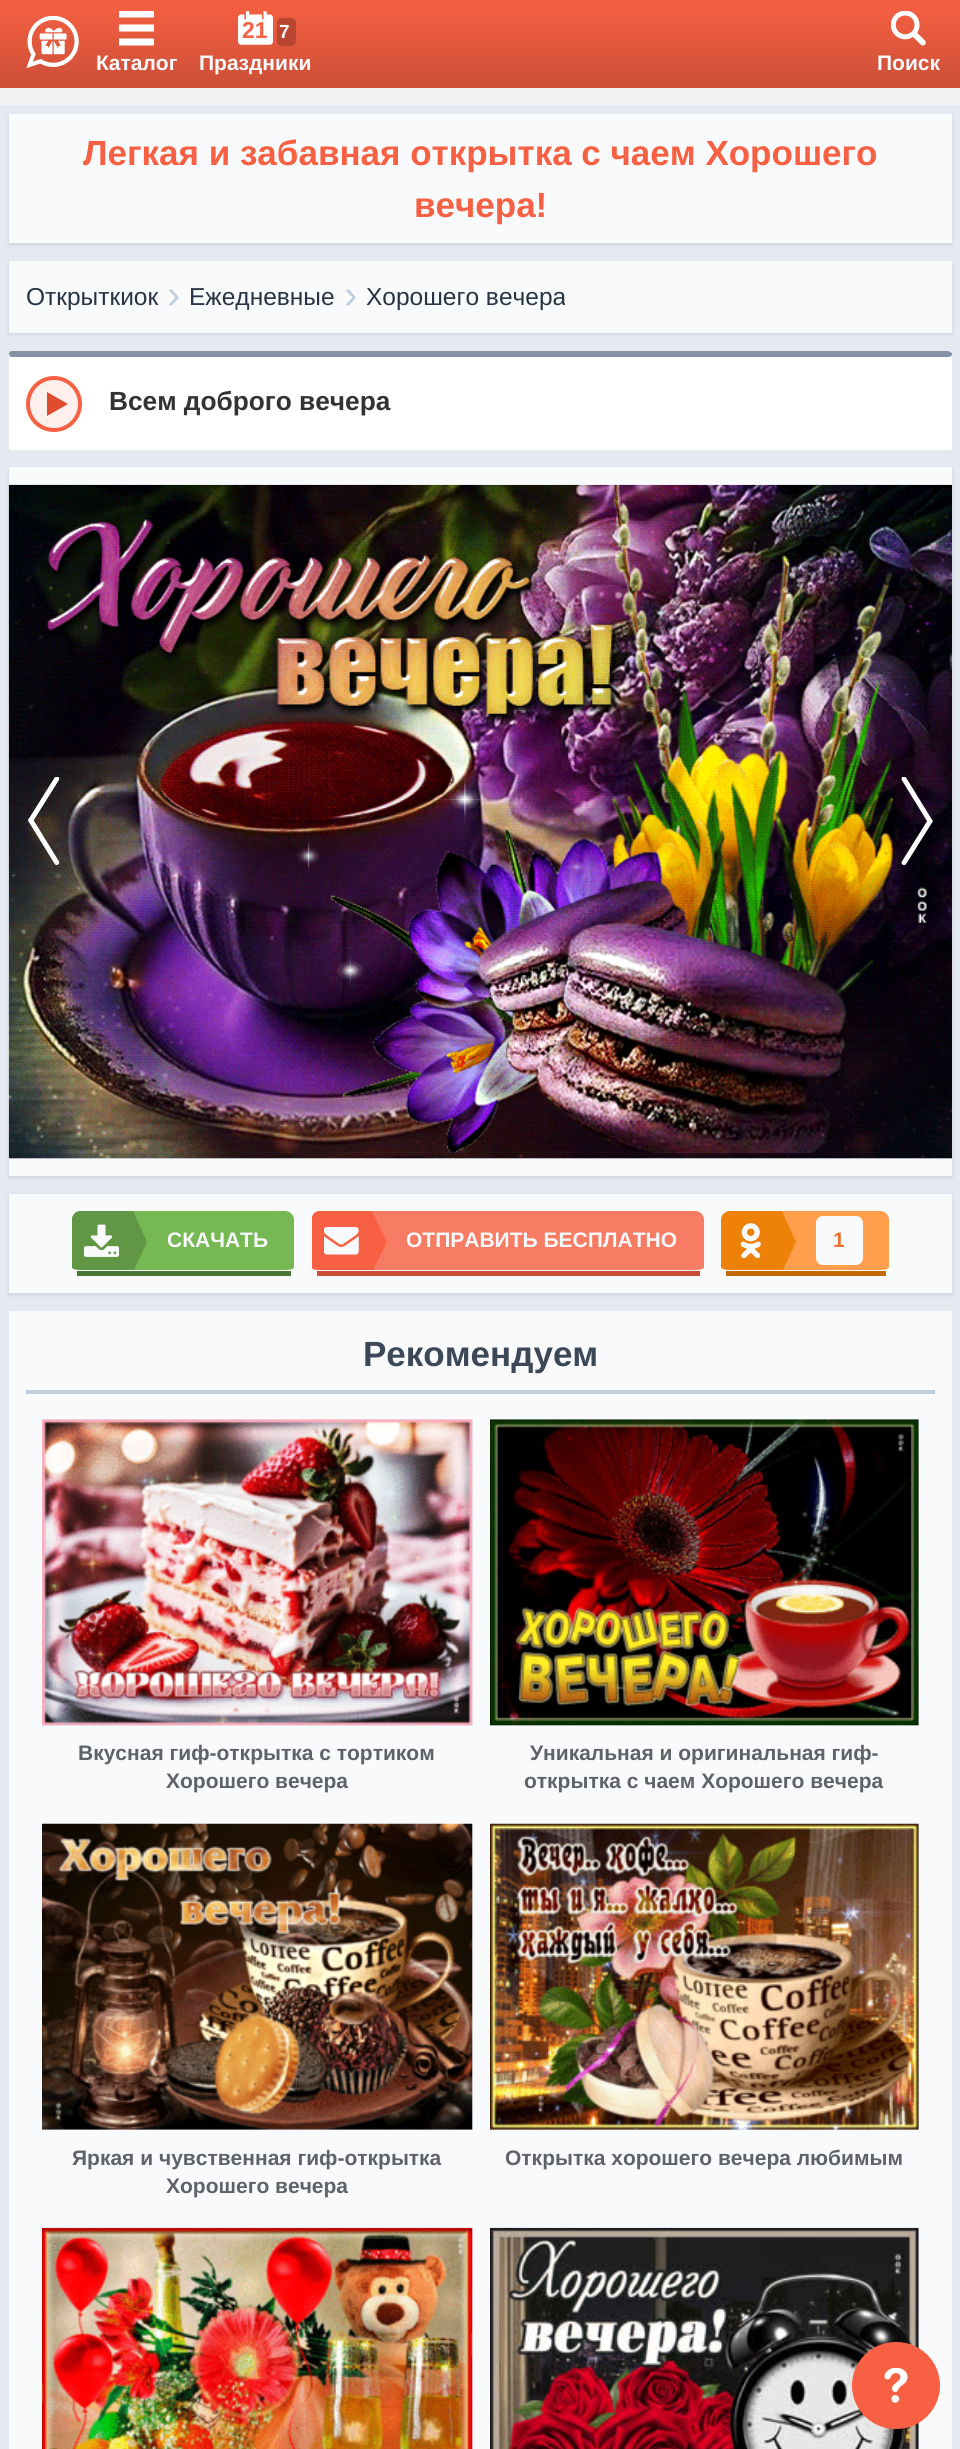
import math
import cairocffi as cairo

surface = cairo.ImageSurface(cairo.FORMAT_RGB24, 960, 2449)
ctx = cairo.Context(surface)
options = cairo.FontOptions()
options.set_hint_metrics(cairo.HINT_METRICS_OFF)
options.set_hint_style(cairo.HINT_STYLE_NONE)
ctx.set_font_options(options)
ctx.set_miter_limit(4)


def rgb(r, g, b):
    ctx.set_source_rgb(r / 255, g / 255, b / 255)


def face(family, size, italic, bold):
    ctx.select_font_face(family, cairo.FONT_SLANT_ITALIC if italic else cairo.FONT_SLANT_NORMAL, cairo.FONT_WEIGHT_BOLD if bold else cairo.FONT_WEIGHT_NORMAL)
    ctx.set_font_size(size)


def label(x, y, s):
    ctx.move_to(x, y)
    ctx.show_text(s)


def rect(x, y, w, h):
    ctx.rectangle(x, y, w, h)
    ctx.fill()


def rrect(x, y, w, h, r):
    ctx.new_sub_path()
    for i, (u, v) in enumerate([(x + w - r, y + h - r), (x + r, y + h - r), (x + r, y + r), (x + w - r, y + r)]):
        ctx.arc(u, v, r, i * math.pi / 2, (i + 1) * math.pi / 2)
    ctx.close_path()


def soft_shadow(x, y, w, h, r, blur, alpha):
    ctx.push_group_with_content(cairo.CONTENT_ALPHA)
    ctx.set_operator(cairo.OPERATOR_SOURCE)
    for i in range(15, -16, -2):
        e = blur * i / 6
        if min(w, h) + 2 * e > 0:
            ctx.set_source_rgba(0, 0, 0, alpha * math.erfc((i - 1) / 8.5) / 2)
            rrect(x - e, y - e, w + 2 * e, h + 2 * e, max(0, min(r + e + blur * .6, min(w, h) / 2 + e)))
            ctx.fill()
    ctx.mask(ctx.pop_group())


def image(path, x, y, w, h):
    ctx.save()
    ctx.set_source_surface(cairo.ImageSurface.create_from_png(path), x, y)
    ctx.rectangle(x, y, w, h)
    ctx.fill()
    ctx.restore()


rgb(241, 241, 241)
ctx.paint()
gradient = cairo.LinearGradient(480, 0, 480, 88)
gradient.add_color_stop_rgba(0, 0.969, 0.376, 0.259, 1)
gradient.add_color_stop_rgba(1, 0.796, 0.31, 0.216, 1)
ctx.set_source(gradient)
rect(0, 0, 960, 88)
image('image0.png', 26, 16, 53, 52)
ctx.save()
ctx.rectangle(119, 11, 35, 35)
ctx.clip()
rgb(255, 255, 255)
ctx.new_path()
ctx.move_to(119, 10.5)
ctx.line_to(154, 10.5)
ctx.line_to(154, 17.5)
ctx.line_to(119, 17.5)
ctx.close_path()
ctx.move_to(119, 24.5)
ctx.line_to(154, 24.5)
ctx.line_to(154, 31.5)
ctx.line_to(119, 31.5)
ctx.close_path()
ctx.move_to(119, 38.5)
ctx.line_to(154, 38.5)
ctx.line_to(154, 45.5)
ctx.line_to(119, 45.5)
ctx.close_path()
ctx.fill()
ctx.restore()
face('Liberation Sans', 21, 0, 1)
rgb(249, 250, 252)
label(96, 70, 'Каталог')
image('image1.png', 238, 11, 35, 34)
face('Liberation Sans', 23, 0, 1)
rgb(247, 96, 66)
label(242, 38, '21')
rgb(185, 70, 48)
rrect(277, 18, 19, 28, 5)
ctx.fill()
face('Liberation Sans', 19, 0, 1)
rgb(249, 250, 252)
label(279, 38, '7')
face('Liberation Sans', 21, 0, 1)
label(199, 70, 'Праздники')
image('image2.png', 891, 11, 35, 35)
label(877, 70, 'Поиск')
rgb(229, 233, 242)
rect(0, 105, 960, 2344)
rgb(0, 0, 0)
soft_shadow(9, 116, 943, 129, 0, 2, 0.1)
rgb(249, 250, 252)
rect(9, 114, 943, 129)
face('Liberation Sans', 35, 0, 1)
rgb(247, 96, 66)
label(83, 165, 'Легкая и забавная открытка с чаем Хорошего')
label(414, 217, 'вечера!')
rgb(0, 0, 0)
soft_shadow(9, 263, 943, 71, 0, 2, 0.1)
rgb(249, 250, 252)
rect(9, 261, 943, 72)
face('Liberation Sans', 24.5, 0, 0)
rgb(39, 52, 68)
label(26, 305, 'Открыткиок')
face('Liberation Sans', 40, 0, 0)
rgb(192, 204, 218)
label(167, 308, '›')
face('Liberation Sans', 24.5, 0, 0)
rgb(39, 52, 68)
label(189, 305, 'Ежедневные')
face('Liberation Sans', 40, 0, 0)
rgb(192, 204, 218)
label(344, 308, '›')
ctx.save()
ctx.rectangle(366, 278, 199, 37)
ctx.clip()
face('Liberation Sans', 24.5, 0, 0)
rgb(39, 52, 68)
label(366, 305, 'Хорошего вечера')
ctx.restore()
rgb(255, 255, 255)
rect(9, 355, 943, 95)
rgb(132, 146, 166)
ctx.new_path()
ctx.move_to(12, 351)
ctx.line_to(948, 351)
ctx.line_to(950, 352)
ctx.curve_to(954, 353, 952, 357, 948, 357)
ctx.line_to(12, 357)
ctx.curve_to(8, 357, 8, 351, 12, 351)
ctx.close_path()
ctx.fill()
rgb(254, 240, 237)
ctx.arc(54, 404, 26, 0, 2 * math.pi)
ctx.fill_preserve()
rgb(247, 96, 66)
ctx.set_line_width(4)
ctx.stroke()
rgb(223, 77, 47)
ctx.new_path()
ctx.move_to(47, 416)
ctx.line_to(47, 392)
ctx.line_to(68, 404)
ctx.close_path()
ctx.fill()
face('Liberation Sans', 26.25, 0, 1)
rgb(51, 51, 51)
label(109, 410, 'Всем доброго вечера')
rgb(0, 0, 0)
soft_shadow(9, 469, 943, 709, 0, 2, 0.1)
rgb(249, 250, 252)
rect(9, 467, 943, 709)
rgb(229, 233, 242)
rect(9, 1158, 943, 1)
image('image3.png', 8, 484, 944, 675)
image('image4.png', 28, 777, 32, 88)
image('image5.png', 901, 777, 32, 88)
rgb(249, 250, 252)
rect(9, 1194, 943, 99)
ctx.save()
ctx.set_fill_rule(cairo.FILL_RULE_EVEN_ODD)
ctx.new_path()
ctx.move_to(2, 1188)
ctx.line_to(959, 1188)
ctx.line_to(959, 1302)
ctx.line_to(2, 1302)
ctx.close_path()
ctx.move_to(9, 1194)
ctx.line_to(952, 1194)
ctx.line_to(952, 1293)
ctx.line_to(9, 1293)
ctx.close_path()
ctx.clip()
rgb(0, 0, 0)
soft_shadow(9, 1195, 943, 100, 0, 2, 0.1)
ctx.restore()
rgb(76, 118, 53)
rect(77, 1271, 214, 5)
rgb(97, 151, 68)
ctx.new_path()
ctx.move_to(80, 1211)
ctx.curve_to(76, 1211, 73, 1214, 72, 1218)
ctx.line_to(72, 1268)
ctx.curve_to(73, 1269, 76, 1270, 80, 1270)
ctx.line_to(131, 1270)
ctx.line_to(131, 1211)
ctx.close_path()
ctx.fill()
image('image6.png', 84, 1224, 35, 33)
rgb(118, 184, 82)
ctx.new_path()
ctx.move_to(131, 1211)
ctx.line_to(131, 1270)
ctx.line_to(285, 1270)
ctx.curve_to(290, 1270, 294, 1269, 294, 1267)
ctx.line_to(294, 1220)
ctx.curve_to(294, 1215, 290, 1211, 285, 1211)
ctx.close_path()
ctx.fill()
rgb(97, 151, 68)
ctx.new_path()
ctx.move_to(133, 1211)
ctx.line_to(147, 1242)
ctx.line_to(134, 1270)
ctx.line_to(121, 1270)
ctx.line_to(121, 1211)
ctx.close_path()
ctx.fill()
face('Liberation Sans', 21, 0, 1)
rgb(249, 250, 252)
label(167, 1247, 'СКАЧАТЬ')
rgb(203, 79, 55)
rect(317, 1271, 383, 5)
rgb(247, 96, 66)
ctx.new_path()
ctx.move_to(320, 1211)
ctx.curve_to(316, 1211, 313, 1213, 312, 1217)
ctx.line_to(312, 1268)
ctx.curve_to(313, 1270, 316, 1270, 320, 1270)
ctx.line_to(371, 1270)
ctx.line_to(371, 1211)
ctx.close_path()
ctx.fill()
image('image7.png', 324, 1227, 35, 28)
rgb(248, 124, 100)
ctx.new_path()
ctx.move_to(371, 1211)
ctx.line_to(371, 1270)
ctx.line_to(695, 1270)
ctx.curve_to(700, 1270, 704, 1269, 704, 1267)
ctx.line_to(704, 1220)
ctx.curve_to(704, 1215, 700, 1211, 695, 1211)
ctx.close_path()
ctx.fill()
rgb(247, 96, 66)
ctx.new_path()
ctx.move_to(372, 1211)
ctx.line_to(387, 1242)
ctx.line_to(373, 1270)
ctx.line_to(360, 1270)
ctx.line_to(360, 1211)
ctx.close_path()
ctx.fill()
rgb(249, 250, 252)
label(406, 1247, 'ОТПРАВИТЬ БЕСПЛАТНО')
rgb(195, 107, 7)
rect(726, 1271, 160, 5)
rgb(238, 130, 8)
ctx.new_path()
ctx.move_to(730, 1211)
ctx.curve_to(725, 1211, 721, 1215, 721, 1220)
ctx.line_to(721, 1267)
ctx.curve_to(721, 1269, 725, 1270, 730, 1270)
ctx.line_to(781, 1270)
ctx.line_to(781, 1211)
ctx.close_path()
ctx.fill()
image('image8.png', 740, 1223, 21, 35)
rgb(255, 159, 77)
ctx.new_path()
ctx.move_to(781, 1211)
ctx.line_to(781, 1270)
ctx.line_to(880, 1270)
ctx.curve_to(885, 1270, 889, 1269, 889, 1267)
ctx.line_to(889, 1220)
ctx.curve_to(889, 1215, 885, 1211, 880, 1211)
ctx.close_path()
ctx.fill()
rgb(238, 130, 8)
ctx.new_path()
ctx.move_to(782, 1211)
ctx.line_to(796, 1242)
ctx.line_to(783, 1270)
ctx.line_to(770, 1270)
ctx.line_to(770, 1211)
ctx.close_path()
ctx.fill()
rgb(249, 250, 252)
rrect(816, 1216, 47, 49, 7)
ctx.fill()
rgb(235, 114, 46)
label(833, 1247, '1')
rgb(249, 250, 252)
rect(9, 1311, 943, 1138)
rgb(192, 204, 218)
rect(26, 1390, 909, 4)
face('Liberation Sans', 35, 0, 1)
rgb(60, 72, 88)
label(363, 1366, 'Рекомендуем')
rgb(229, 233, 242)
rect(42, 1419, 431, 307)
image('image9.png', 42, 1419, 431, 307)
face('Liberation Sans', 21, 0, 1)
rgb(95, 99, 104)
label(78, 1760, 'Вкусная гиф-открытка с тортиком')
label(166, 1788, 'Хорошего вечера')
rgb(229, 233, 242)
rect(490, 1419, 429, 307)
image('image10.png', 490, 1419, 429, 307)
rgb(95, 99, 104)
label(530, 1760, 'Уникальная и оригинальная гиф-')
label(524, 1788, 'открытка с чаем Хорошего вечера')
rgb(229, 233, 242)
rect(42, 1824, 431, 306)
image('image11.png', 42, 1823, 431, 307)
rgb(95, 99, 104)
label(72, 2165, 'Яркая и чувственная гиф-открытка')
label(166, 2193, 'Хорошего вечера')
rgb(229, 233, 242)
rect(490, 1824, 429, 306)
image('image12.png', 490, 1823, 429, 307)
rgb(95, 99, 104)
label(505, 2165, 'Открытка хорошего вечера любимым')
rgb(229, 233, 242)
rect(472, 2228, 1, 221)
image('image13.png', 42, 2227, 431, 222)
rect(918, 2228, 1, 221)
image('image14.png', 490, 2227, 429, 222)
rgb(247, 96, 66)
rrect(852, 2342, 88, 87, 43.5)
ctx.fill()
image('image15.png', 884, 2368, 24, 35)
surface.write_to_png('render.png')
